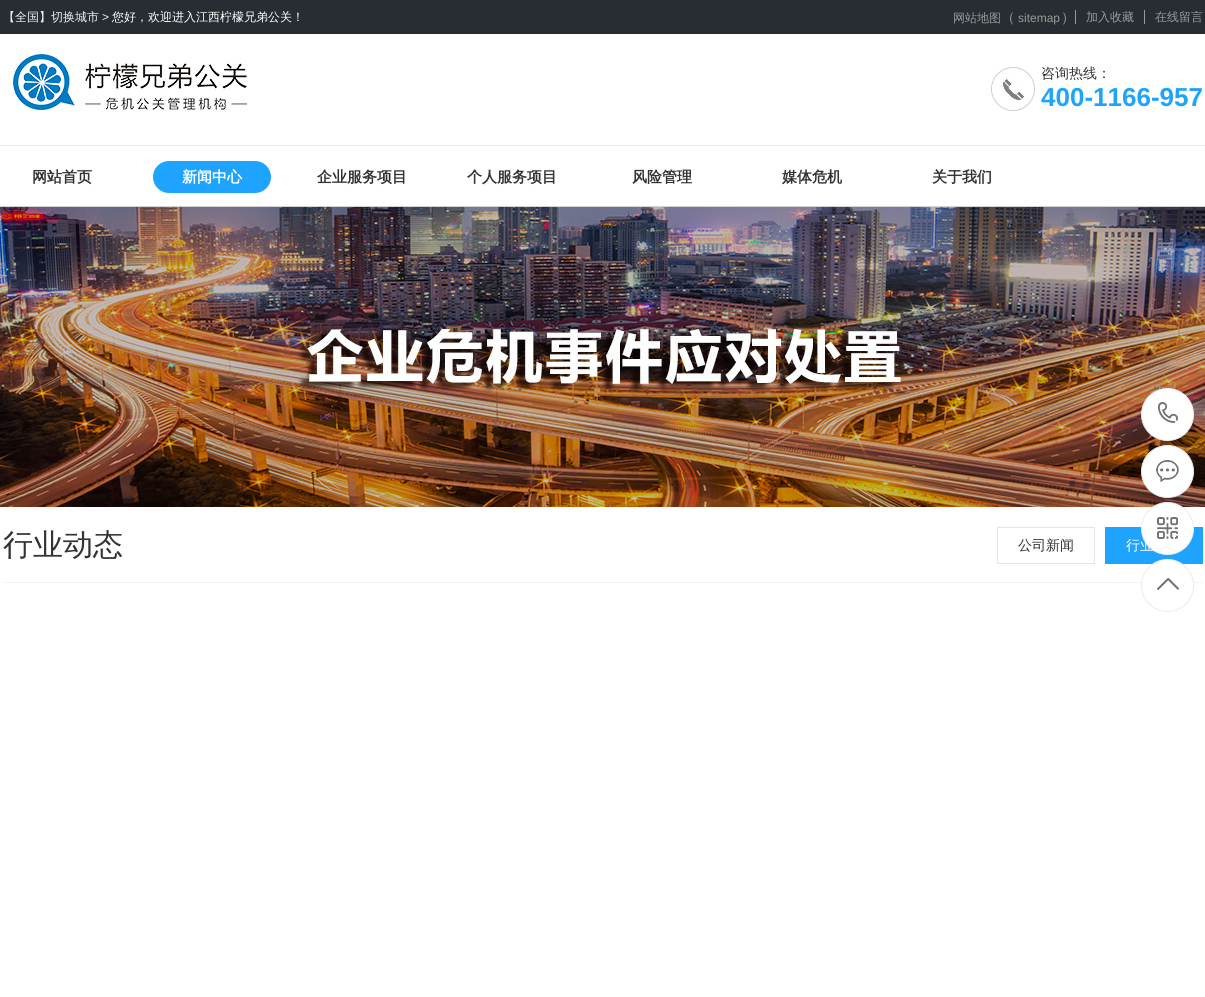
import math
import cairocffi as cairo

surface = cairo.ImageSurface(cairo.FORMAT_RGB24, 1205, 997)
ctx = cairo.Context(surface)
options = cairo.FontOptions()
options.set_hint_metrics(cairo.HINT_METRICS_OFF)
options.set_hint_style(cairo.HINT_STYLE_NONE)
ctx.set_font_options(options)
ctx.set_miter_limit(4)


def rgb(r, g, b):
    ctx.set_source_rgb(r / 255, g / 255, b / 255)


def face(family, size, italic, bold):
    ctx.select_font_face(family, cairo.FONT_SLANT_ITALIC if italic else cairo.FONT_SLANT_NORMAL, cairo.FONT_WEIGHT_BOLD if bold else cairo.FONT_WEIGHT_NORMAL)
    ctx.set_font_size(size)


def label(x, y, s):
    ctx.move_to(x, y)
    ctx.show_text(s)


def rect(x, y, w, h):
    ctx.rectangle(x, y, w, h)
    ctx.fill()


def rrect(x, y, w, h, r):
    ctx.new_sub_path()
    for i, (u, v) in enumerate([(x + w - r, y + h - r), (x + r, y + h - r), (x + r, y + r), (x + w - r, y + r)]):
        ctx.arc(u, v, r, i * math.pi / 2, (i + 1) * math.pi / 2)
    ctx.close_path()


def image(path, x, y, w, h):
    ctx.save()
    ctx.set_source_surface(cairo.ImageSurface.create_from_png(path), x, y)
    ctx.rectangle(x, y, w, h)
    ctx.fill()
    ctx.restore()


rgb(255, 255, 255)
ctx.paint()
rgb(40, 45, 52)
rect(0, 0, 1205, 34)
face('WenQuanYi Zen Hei Medium', 12, 0, 0)
rgb(239, 239, 239)
label(3, 21, '【全国】切换城市')
face('Liberation Sans', 12, 0, 0)
label(102, 21, '>')
face('WenQuanYi Zen Hei Medium', 12, 0, 0)
rgb(255, 255, 255)
label(112, 21, '您好，欢迎进入江西柠檬兄弟公关！')
rgb(153, 153, 153)
label(953, 22, '网站地图')
face('WenQuanYi Zen Hei Medium', 14, 0, 0)
label(1001, 22, '（')
face('Liberation Sans', 12, 0, 0)
label(1018, 22, 'sitemap')
face('WenQuanYi Zen Hei Medium', 14, 0, 0)
label(1061, 22, '）')
rect(1075, 10, 1, 14)
face('WenQuanYi Zen Hei Medium', 12, 0, 0)
label(1086, 21, '加入收藏')
rect(1144, 10, 1, 14)
label(1155, 21, '在线留言')
rgb(237, 237, 237)
rect(0, 145, 1205, 1)
image('image0.png', 13, 54, 234, 58)
image('image1.png', 991, 67, 44, 44)
face('WenQuanYi Zen Hei Medium', 14, 0, 0)
rgb(51, 51, 51)
label(1041, 78, '咨询热线：')
face('Liberation Sans', 26, 0, 1)
rgb(30, 164, 254)
label(1041, 106, '400-1166-957')
rgb(210, 210, 214)
rect(0, 206, 1205, 1)
face('WenQuanYi Zen Hei', 15, 0, 1)
rgb(51, 51, 51)
label(32, 182, '网站首页')
rgb(30, 164, 254)
rrect(153, 161, 118, 32, 16)
ctx.fill()
rgb(255, 255, 255)
label(182, 182, '新闻中心')
rgb(51, 51, 51)
label(317, 182, '企业服务项目')
label(467, 182, '个人服务项目')
label(632, 182, '风险管理')
label(782, 182, '媒体危机')
label(932, 182, '关于我们')
image('image2.png', 0, 207, 1205, 300)
rgb(242, 242, 242)
rect(3, 582, 1200, 1)
face('WenQuanYi Zen Hei Medium', 30, 0, 0)
rgb(51, 51, 51)
label(3, 555, '行业动态')
ctx.rectangle(997.5, 527.5, 97, 36)
rgb(230, 230, 230)
ctx.set_line_width(1)
ctx.stroke()
face('WenQuanYi Zen Hei Medium', 14, 0, 0)
rgb(51, 51, 51)
label(1018, 550, '公司新闻')
rgb(30, 164, 254)
rect(1105, 527, 98, 37)
rgb(255, 255, 255)
label(1126, 550, '行业')
ctx.new_path()
ctx.arc(1167.5, 414.5, 26, 0, 2 * math.pi)
ctx.fill_preserve()
rgb(235, 235, 235)
ctx.stroke()
image('image3.png', 1158, 402, 20, 21)
rgb(255, 255, 255)
ctx.arc(1167.5, 471.5, 26, 0, 2 * math.pi)
ctx.fill_preserve()
rgb(235, 235, 235)
ctx.stroke()
image('image4.png', 1156, 460, 23, 22)
rgb(255, 255, 255)
ctx.arc(1167.5, 528.5, 26, 0, 2 * math.pi)
ctx.fill_preserve()
rgb(235, 235, 235)
ctx.stroke()
image('image5.png', 1157, 517, 21, 22)
rgb(255, 255, 255)
ctx.arc(1167.5, 585.5, 26, 0, 2 * math.pi)
ctx.fill_preserve()
rgb(235, 235, 235)
ctx.stroke()
image('image6.png', 1157, 578, 22, 12)
surface.write_to_png('render.png')
